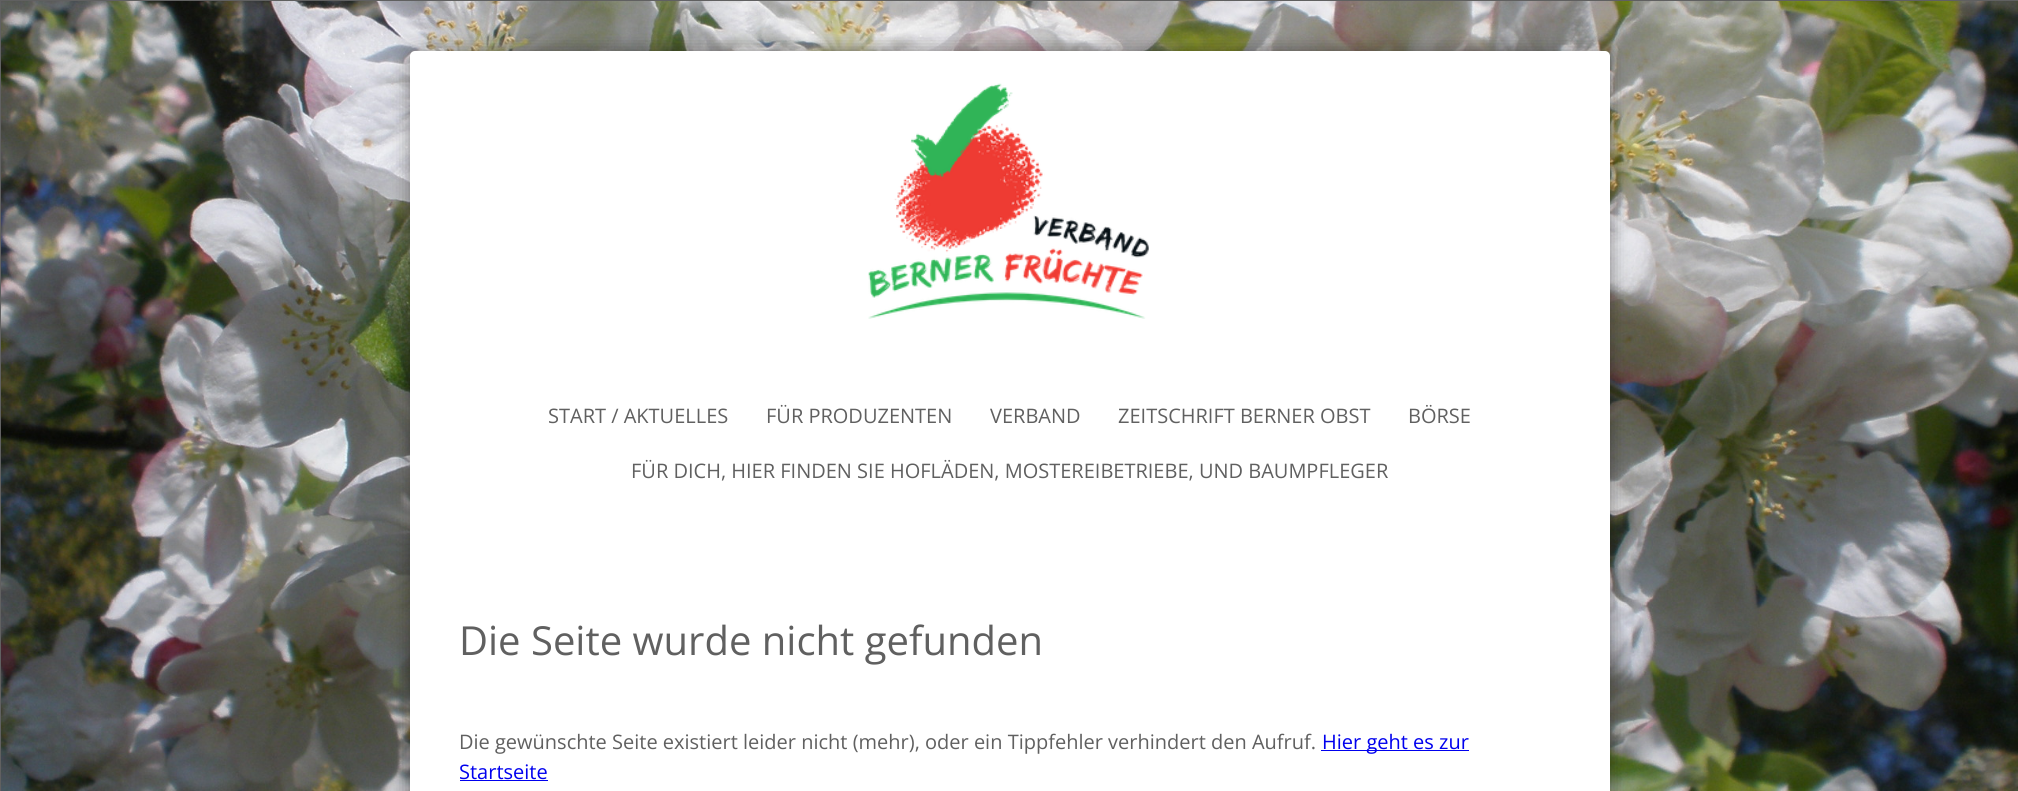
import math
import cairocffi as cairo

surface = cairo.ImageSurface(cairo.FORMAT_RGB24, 2018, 791)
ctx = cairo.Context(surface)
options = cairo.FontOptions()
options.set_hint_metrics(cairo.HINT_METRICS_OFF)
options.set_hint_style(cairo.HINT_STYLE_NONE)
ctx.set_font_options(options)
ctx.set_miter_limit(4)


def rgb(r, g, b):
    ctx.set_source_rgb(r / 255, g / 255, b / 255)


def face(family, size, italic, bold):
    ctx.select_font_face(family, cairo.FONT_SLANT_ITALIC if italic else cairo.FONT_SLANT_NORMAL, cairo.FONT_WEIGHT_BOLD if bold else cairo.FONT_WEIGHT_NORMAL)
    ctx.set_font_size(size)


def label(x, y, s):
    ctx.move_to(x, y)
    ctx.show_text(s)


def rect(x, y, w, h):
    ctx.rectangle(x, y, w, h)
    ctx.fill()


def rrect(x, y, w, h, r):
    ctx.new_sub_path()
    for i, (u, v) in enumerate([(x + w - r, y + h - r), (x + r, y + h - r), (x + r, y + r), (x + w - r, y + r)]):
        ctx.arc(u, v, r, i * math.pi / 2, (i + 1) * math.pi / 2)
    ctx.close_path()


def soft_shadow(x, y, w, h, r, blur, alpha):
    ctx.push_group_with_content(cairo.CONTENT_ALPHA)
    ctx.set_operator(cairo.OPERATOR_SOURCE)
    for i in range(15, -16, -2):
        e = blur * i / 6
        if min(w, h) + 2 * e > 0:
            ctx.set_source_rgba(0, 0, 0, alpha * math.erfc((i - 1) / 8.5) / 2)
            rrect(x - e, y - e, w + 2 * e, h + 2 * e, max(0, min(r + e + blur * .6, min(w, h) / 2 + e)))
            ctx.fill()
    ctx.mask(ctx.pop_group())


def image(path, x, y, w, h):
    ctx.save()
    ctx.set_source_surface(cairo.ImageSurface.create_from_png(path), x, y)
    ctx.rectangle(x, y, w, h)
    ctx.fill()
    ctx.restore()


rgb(255, 255, 255)
ctx.paint()
image('image0.png', 1, 1, 2017, 790)
ctx.rectangle(0.5, 0.5, 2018, 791)
rgb(96, 96, 96)
ctx.set_line_width(1)
ctx.stroke()
rgb(27, 22, 19)
soft_shadow(410, 51, 1200, 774, 5, 9.5, 0.5)
rgb(255, 255, 255)
rrect(410, 51, 1200, 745, 5)
ctx.fill()
image('image1.png', 868, 83, 281, 236)
face('Open Sans', 20, 0, 0)
rgb(96, 96, 96)
label(548, 423, 'START / AKTUELLES')
label(766, 423, 'FÜR PRODUZENTEN')
label(990, 423, 'VERBAND')
label(1118, 423, 'ZEITSCHRIFT BERNER OBST')
label(1408, 423, 'BÖRSE')
label(631, 478, 'FÜR DICH, HIER FINDEN SIE HOFLÄDEN, MOSTEREIBETRIEBE, UND BAUMPFLEGER')
face('Open Sans', 40, 0, 0)
label(459, 655, 'Die Seite wurde nicht gefunden')
face('Open Sans', 20, 0, 0)
label(459, 749, 'Die gewünschte Seite existiert leider nicht (mehr), oder ein Tippfehler verhindert den Aufruf.')
rgb(0, 0, 238)
rect(1321, 750, 148, 1)
label(1322, 749, 'Hier geht es zur')
label(459, 779, 'Startseite')
rect(460, 780, 88, 1)
surface.write_to_png('render.png')
